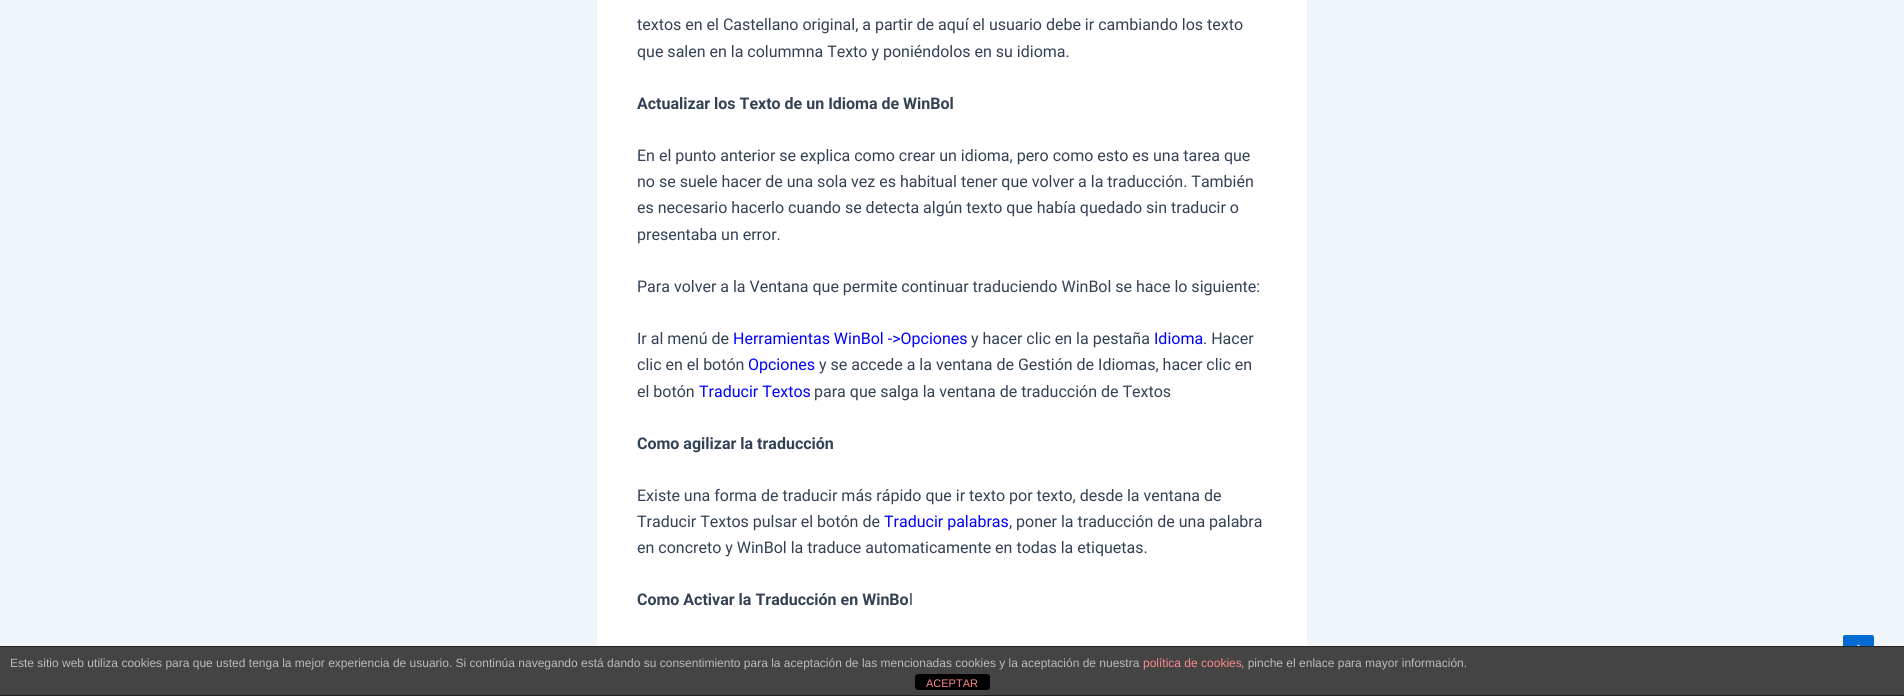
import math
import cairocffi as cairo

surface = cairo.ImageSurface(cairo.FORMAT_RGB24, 1904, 696)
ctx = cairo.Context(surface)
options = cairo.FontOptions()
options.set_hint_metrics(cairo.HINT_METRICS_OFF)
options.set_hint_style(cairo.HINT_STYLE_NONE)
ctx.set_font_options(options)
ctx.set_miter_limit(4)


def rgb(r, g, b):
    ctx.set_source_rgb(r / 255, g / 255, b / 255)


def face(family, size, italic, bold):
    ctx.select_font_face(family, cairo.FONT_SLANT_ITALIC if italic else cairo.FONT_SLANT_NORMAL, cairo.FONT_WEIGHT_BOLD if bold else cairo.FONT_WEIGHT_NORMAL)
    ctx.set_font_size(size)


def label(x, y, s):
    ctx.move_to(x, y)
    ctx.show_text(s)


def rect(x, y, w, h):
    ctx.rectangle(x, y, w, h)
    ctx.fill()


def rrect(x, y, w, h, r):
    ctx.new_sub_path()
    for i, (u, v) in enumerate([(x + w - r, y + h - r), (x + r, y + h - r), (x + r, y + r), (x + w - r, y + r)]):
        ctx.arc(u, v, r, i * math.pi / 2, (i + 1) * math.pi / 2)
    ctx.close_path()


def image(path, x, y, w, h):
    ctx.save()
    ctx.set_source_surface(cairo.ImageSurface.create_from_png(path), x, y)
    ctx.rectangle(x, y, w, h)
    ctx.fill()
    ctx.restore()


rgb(240, 245, 250)
ctx.paint()
rgb(255, 255, 255)
rect(597, 0, 710, 646)
face('Roboto', 16, 0, 0)
rgb(51, 65, 85)
label(637, 30, 'textos en el Castellano original, a partir de aquí el usuario debe ir cambiando los texto')
label(637, 57, 'que salen en la colummna Texto y poniéndolos en su idioma.')
face('Roboto', 16, 0, 1)
label(637, 109, 'Actualizar los Texto de un Idioma de WinBol')
face('Roboto', 16, 0, 0)
label(637, 161, 'En el punto anterior se explica como crear un idioma, pero como esto es una tarea que')
label(637, 187, 'no se suele hacer de una sola vez es habitual tener que volver a la traducción. También')
label(637, 213, 'es necesario hacerlo cuando se detecta algún texto que había quedado sin traducir o')
label(637, 240, 'presentaba un error.')
label(637, 292, 'Para volver a la Ventana que permite continuar traduciendo WinBol se hace lo siguiente:')
label(637, 344, 'Ir al menú de')
rgb(0, 0, 255)
label(733, 344, 'Herramientas WinBol ->Opciones')
rgb(51, 65, 85)
label(971, 344, 'y hacer clic en la pestaña')
rgb(0, 0, 255)
label(1154, 344, 'Idioma')
rgb(51, 65, 85)
label(1203, 344, '. Hacer')
label(637, 370, 'clic en el botón')
rgb(0, 0, 255)
label(748, 370, 'Opciones')
rgb(51, 65, 85)
label(819, 370, 'y se accede a la ventana de Gestión de Idiomas, hacer clic en')
label(637, 397, 'el botón')
rgb(0, 0, 255)
label(699, 397, 'Traducir Textos')
rgb(51, 65, 85)
label(814, 397, 'para que salga la ventana de traducción de Textos')
face('Roboto', 16, 0, 1)
label(637, 449, 'Como agilizar la traducción')
face('Roboto', 16, 0, 0)
label(637, 501, 'Existe una forma de traducir más rápido que ir texto por texto, desde la ventana de')
label(637, 527, 'Traducir Textos pulsar el botón de')
rgb(0, 0, 255)
label(884, 527, 'Traducir palabras')
rgb(51, 65, 85)
label(1009, 527, ', poner la traducción de una palabra')
label(637, 553, 'en concreto y WinBol la traduce automaticamente en todas la etiquetas.')
face('Roboto', 16, 0, 1)
label(637, 605, 'Como Activar la Traducción en WinBo')
face('Roboto', 16, 0, 0)
label(909, 605, 'l')
rgb(4, 107, 210)
rrect(1843, 635, 31, 31, 2)
ctx.fill()
image('image0.png', 1857, 644, 3, 2)
rgb(68, 68, 68)
rect(0, 647, 1904, 48)
rgb(34, 34, 34)
rect(0, 646, 1904, 1)
rect(0, 695, 1904, 1)
face('Liberation Sans', 12, 0, 0)
rgb(187, 187, 187)
label(10, 667, 'Este sitio web utiliza cookies para que usted tenga la mejor experiencia de usuario. Si continúa navegando está dando su consentimiento para la aceptación de las mencionadas cookies y la aceptación de nuestra')
rgb(255, 136, 136)
label(1143, 667, 'política de cookies')
rgb(187, 187, 187)
label(1241, 667, ', pinche el enlace para mayor información.')
rgb(0, 0, 0)
rrect(915, 674, 75, 16, 3)
ctx.fill()
face('Liberation Sans', 11, 0, 0)
rgb(255, 136, 136)
label(926, 687, 'ACEPTAR')
surface.write_to_png('render.png')
